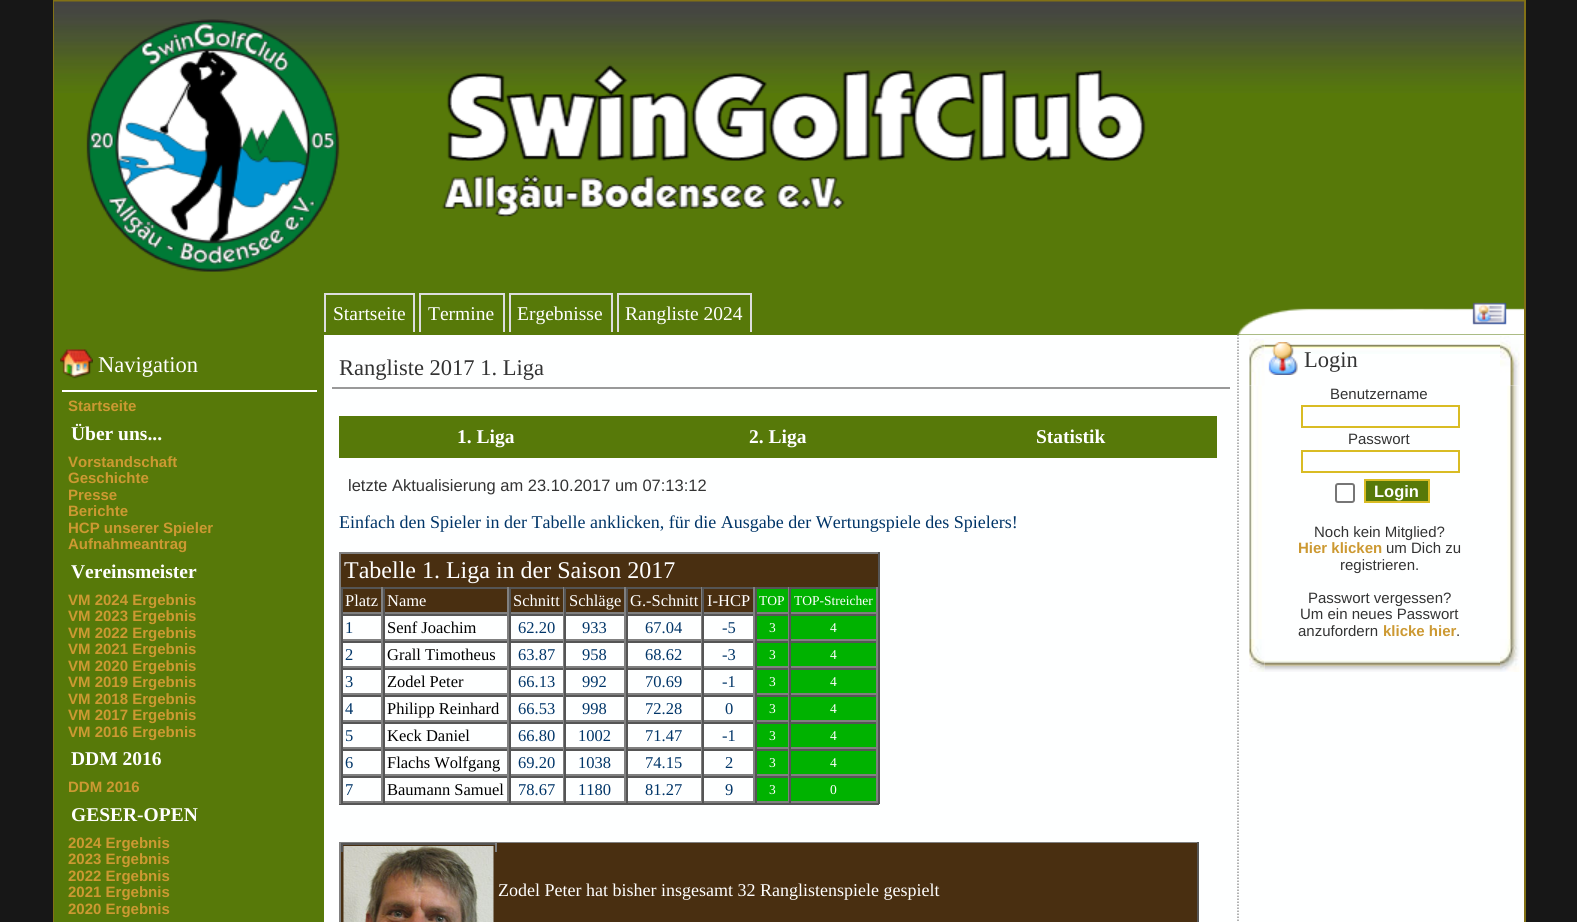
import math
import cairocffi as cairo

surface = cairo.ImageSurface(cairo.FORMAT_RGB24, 1577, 922)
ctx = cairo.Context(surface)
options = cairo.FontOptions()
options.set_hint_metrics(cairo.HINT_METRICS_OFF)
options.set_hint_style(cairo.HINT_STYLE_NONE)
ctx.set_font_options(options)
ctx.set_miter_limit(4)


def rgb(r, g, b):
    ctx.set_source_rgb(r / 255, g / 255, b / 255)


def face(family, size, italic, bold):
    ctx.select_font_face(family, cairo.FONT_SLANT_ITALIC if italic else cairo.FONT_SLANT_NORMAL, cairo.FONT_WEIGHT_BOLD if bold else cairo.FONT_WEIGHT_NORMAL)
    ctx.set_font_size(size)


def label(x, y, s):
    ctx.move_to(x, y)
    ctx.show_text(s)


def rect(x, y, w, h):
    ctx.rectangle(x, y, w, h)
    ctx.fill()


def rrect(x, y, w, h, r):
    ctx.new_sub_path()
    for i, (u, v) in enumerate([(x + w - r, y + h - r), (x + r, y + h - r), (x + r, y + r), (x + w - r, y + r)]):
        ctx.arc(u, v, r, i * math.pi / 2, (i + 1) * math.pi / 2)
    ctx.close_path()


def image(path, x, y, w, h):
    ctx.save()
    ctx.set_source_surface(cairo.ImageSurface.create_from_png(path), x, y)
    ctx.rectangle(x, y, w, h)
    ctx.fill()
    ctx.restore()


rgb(23, 23, 23)
ctx.paint()
ctx.rectangle(54, 1, 1471, 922)
rgb(130, 113, 22)
ctx.stroke()
rgb(87, 121, 9)
rect(54, 93, 1470, 242)
image('image0.png', 54, 1, 1470, 92)
image('image1.png', 86, 19, 1060, 253)
image('image2.png', 1237, 308, 287, 27)
face('Liberation Serif', 19.5, 0, 0)
rgb(255, 255, 255)
label(333, 320, 'Startseite')
rgb(221, 221, 221)
rect(324, 293, 90, 2)
rect(413, 293, 2, 39)
rect(324, 293, 2, 39)
rgb(255, 255, 255)
label(428, 320, 'Termine')
rgb(221, 221, 221)
rect(419, 293, 85, 2)
rect(503, 293, 2, 39)
rect(419, 293, 2, 39)
rgb(255, 255, 255)
label(517, 320, 'Ergebnisse')
rgb(221, 221, 221)
rect(509, 293, 103, 2)
rect(611, 293, 2, 39)
rect(509, 293, 2, 39)
rgb(255, 255, 255)
label(625, 320, 'Rangliste 2024')
rgb(221, 221, 221)
rect(617, 293, 135, 2)
rect(750, 293, 2, 39)
rect(617, 293, 2, 39)
image('image3.png', 1472, 302, 35, 23)
rgb(87, 121, 9)
rect(54, 335, 270, 587)
rgb(255, 255, 255)
rect(62, 390, 255, 2)
image('image4.png', 60, 349, 33, 30)
face('Liberation Serif', 22.5, 0, 0)
label(98, 372, 'Navigation')
face('Liberation Sans', 15, 0, 1)
rgb(204, 153, 50)
label(68, 411, 'Startseite')
face('Liberation Serif', 19.5, 0, 1)
rgb(255, 255, 255)
label(71, 440, 'Über uns...')
face('Liberation Sans', 15, 0, 1)
rgb(204, 153, 50)
label(68, 467, 'Vorstandschaft')
label(68, 483, 'Geschichte')
label(68, 500, 'Presse')
label(68, 516, 'Berichte')
label(68, 533, 'HCP unserer Spieler')
label(68, 549, 'Aufnahmeantrag')
face('Liberation Serif', 19.5, 0, 1)
rgb(255, 255, 255)
label(71, 578, 'Vereinsmeister')
face('Liberation Sans', 15, 0, 1)
rgb(204, 153, 50)
label(68, 605, 'VM 2024 Ergebnis')
label(68, 621, 'VM 2023 Ergebnis')
label(68, 638, 'VM 2022 Ergebnis')
label(68, 654, 'VM 2021 Ergebnis')
label(68, 671, 'VM 2020 Ergebnis')
label(68, 687, 'VM 2019 Ergebnis')
label(68, 704, 'VM 2018 Ergebnis')
label(68, 720, 'VM 2017 Ergebnis')
label(68, 737, 'VM 2016 Ergebnis')
face('Liberation Serif', 19.5, 0, 1)
rgb(255, 255, 255)
label(71, 765, 'DDM 2016')
face('Liberation Sans', 15, 0, 1)
rgb(204, 153, 50)
label(68, 792, 'DDM 2016')
face('Liberation Serif', 19.5, 0, 1)
rgb(255, 255, 255)
label(71, 821, 'GESER-OPEN')
face('Liberation Sans', 15, 0, 1)
rgb(204, 153, 50)
label(68, 848, '2024 Ergebnis')
label(68, 864, '2023 Ergebnis')
label(68, 881, '2022 Ergebnis')
label(68, 897, '2021 Ergebnis')
label(68, 914, '2020 Ergebnis')
rgb(254, 255, 255)
rect(324, 335, 914, 587)
rgb(153, 153, 153)
rect(332, 387, 898, 2)
face('Liberation Serif', 22.5, 0, 0)
rgb(51, 51, 51)
label(339, 375, 'Rangliste 2017 1. Liga')
rgb(87, 121, 9)
rect(339, 416, 878, 42)
face('Liberation Serif', 19.5, 0, 1)
rgb(255, 255, 255)
label(457, 443, '1. Liga')
label(749, 443, '2. Liga')
label(1036, 443, 'Statistik')
face('Liberation Sans', 16.5, 0, 0)
rgb(51, 51, 51)
label(348, 491, 'letzte Aktualisierung am 23.10.2017 um 07:13:12')
face('Liberation Serif', 18, 0, 0)
rgb(0, 53, 104)
label(339, 528, 'Einfach den Spieler in der Tabelle anklicken, für die Ausgabe der Wertungspiele des Spielers!')
rgb(128, 128, 128)
rect(339, 552, 540, 2)
rgb(85, 85, 85)
rect(878, 552, 2, 252)
rect(339, 803, 540, 2)
rgb(128, 128, 128)
rect(339, 552, 2, 252)
rgb(73, 47, 17)
rect(341, 554, 537, 33)
face('Liberation Serif', 24, 0, 0)
rgb(255, 255, 255)
label(344, 578, 'Tabelle 1. Liga in der Saison 2017')
rgb(73, 47, 17)
rect(343, 589, 38, 23)
rgb(85, 85, 85)
rect(341, 587, 537, 2)
rgb(128, 128, 128)
rect(381, 587, 2, 27)
rect(341, 612, 42, 2)
rgb(85, 85, 85)
rect(341, 587, 2, 27)
face('Liberation Serif', 16.5, 0, 0)
rgb(255, 255, 255)
label(345, 606, 'Platz')
rgb(73, 47, 17)
rect(385, 589, 122, 23)
rgb(128, 128, 128)
rect(507, 587, 2, 27)
rect(383, 612, 126, 2)
rgb(85, 85, 85)
rect(383, 587, 2, 27)
rgb(255, 255, 255)
label(387, 606, 'Name')
rgb(73, 47, 17)
rect(511, 589, 52, 23)
rgb(128, 128, 128)
rect(563, 587, 1, 27)
rect(509, 612, 55, 2)
rgb(85, 85, 85)
rect(509, 587, 2, 27)
rgb(255, 255, 255)
label(513, 606, 'Schnitt')
rgb(73, 47, 17)
rect(566, 589, 58, 23)
rgb(128, 128, 128)
rect(624, 587, 2, 27)
rect(564, 612, 62, 2)
rgb(85, 85, 85)
rect(564, 587, 2, 27)
rgb(255, 255, 255)
label(569, 606, 'Schläge')
rgb(73, 47, 17)
rect(628, 589, 73, 23)
rgb(128, 128, 128)
rect(701, 587, 1, 27)
rect(626, 612, 76, 2)
rgb(85, 85, 85)
rect(626, 587, 2, 27)
rgb(255, 255, 255)
label(630, 606, 'G.-Schnitt')
rgb(73, 47, 17)
rect(704, 589, 49, 23)
rgb(128, 128, 128)
rect(753, 587, 2, 27)
rect(702, 612, 53, 2)
rgb(85, 85, 85)
rect(702, 587, 2, 27)
rgb(255, 255, 255)
label(707, 606, 'I-HCP')
rgb(0, 178, 0)
rect(757, 589, 31, 23)
rgb(128, 128, 128)
rect(788, 587, 1, 27)
rect(755, 612, 34, 2)
rgb(85, 85, 85)
rect(755, 587, 2, 27)
face('Liberation Serif', 13.5, 0, 0)
rgb(255, 255, 255)
label(759, 605, 'TOP')
rgb(0, 178, 0)
rect(791, 589, 85, 23)
rgb(128, 128, 128)
rect(876, 587, 2, 27)
rect(789, 612, 89, 2)
rgb(85, 85, 85)
rect(789, 587, 2, 27)
rgb(255, 255, 255)
label(794, 605, 'TOP-Streicher')
rgb(85, 85, 85)
rect(341, 614, 537, 2)
rgb(128, 128, 128)
rect(381, 614, 2, 27)
rect(341, 639, 42, 2)
rgb(85, 85, 85)
rect(341, 614, 2, 27)
face('Liberation Serif', 16.5, 0, 0)
rgb(0, 53, 104)
label(345, 633, '1')
rgb(128, 128, 128)
rect(507, 614, 2, 27)
rect(383, 639, 126, 2)
rgb(85, 85, 85)
rect(383, 614, 2, 27)
rgb(0, 0, 0)
label(387, 633, 'Senf Joachim')
rgb(128, 128, 128)
rect(563, 614, 1, 27)
rect(509, 639, 55, 2)
rgb(85, 85, 85)
rect(509, 614, 2, 27)
rgb(0, 53, 104)
label(518, 633, '62.20')
rgb(128, 128, 128)
rect(624, 614, 2, 27)
rect(564, 639, 62, 2)
rgb(85, 85, 85)
rect(564, 614, 2, 27)
rgb(0, 53, 104)
label(582, 633, '933')
rgb(128, 128, 128)
rect(701, 614, 1, 27)
rect(626, 639, 76, 2)
rgb(85, 85, 85)
rect(626, 614, 2, 27)
rgb(0, 53, 104)
label(645, 633, '67.04')
rgb(128, 128, 128)
rect(753, 614, 2, 27)
rect(702, 639, 53, 2)
rgb(85, 85, 85)
rect(702, 614, 2, 27)
rgb(0, 53, 104)
label(722, 633, '-5')
rgb(0, 178, 0)
rect(757, 616, 31, 23)
rgb(128, 128, 128)
rect(788, 614, 1, 27)
rect(755, 639, 34, 2)
rgb(85, 85, 85)
rect(755, 614, 2, 27)
face('Liberation Serif', 13.5, 0, 0)
rgb(255, 255, 255)
label(769, 632, '3')
rgb(0, 178, 0)
rect(791, 616, 85, 23)
rgb(128, 128, 128)
rect(876, 614, 2, 27)
rect(789, 639, 89, 2)
rgb(85, 85, 85)
rect(789, 614, 2, 27)
rgb(255, 255, 255)
label(830, 632, '4')
rgb(85, 85, 85)
rect(341, 641, 537, 2)
rgb(128, 128, 128)
rect(381, 641, 2, 27)
rect(341, 666, 42, 2)
rgb(85, 85, 85)
rect(341, 641, 2, 27)
face('Liberation Serif', 16.5, 0, 0)
rgb(0, 53, 104)
label(345, 660, '2')
rgb(128, 128, 128)
rect(507, 641, 2, 27)
rect(383, 666, 126, 2)
rgb(85, 85, 85)
rect(383, 641, 2, 27)
rgb(0, 0, 0)
label(387, 660, 'Grall Timotheus')
rgb(128, 128, 128)
rect(563, 641, 1, 27)
rect(509, 666, 55, 2)
rgb(85, 85, 85)
rect(509, 641, 2, 27)
rgb(0, 53, 104)
label(518, 660, '63.87')
rgb(128, 128, 128)
rect(624, 641, 2, 27)
rect(564, 666, 62, 2)
rgb(85, 85, 85)
rect(564, 641, 2, 27)
rgb(0, 53, 104)
label(582, 660, '958')
rgb(128, 128, 128)
rect(701, 641, 1, 27)
rect(626, 666, 76, 2)
rgb(85, 85, 85)
rect(626, 641, 2, 27)
rgb(0, 53, 104)
label(645, 660, '68.62')
rgb(128, 128, 128)
rect(753, 641, 2, 27)
rect(702, 666, 53, 2)
rgb(85, 85, 85)
rect(702, 641, 2, 27)
rgb(0, 53, 104)
label(722, 660, '-3')
rgb(0, 178, 0)
rect(757, 643, 31, 23)
rgb(128, 128, 128)
rect(788, 641, 1, 27)
rect(755, 666, 34, 2)
rgb(85, 85, 85)
rect(755, 641, 2, 27)
face('Liberation Serif', 13.5, 0, 0)
rgb(255, 255, 255)
label(769, 659, '3')
rgb(0, 178, 0)
rect(791, 643, 85, 23)
rgb(128, 128, 128)
rect(876, 641, 2, 27)
rect(789, 666, 89, 2)
rgb(85, 85, 85)
rect(789, 641, 2, 27)
rgb(255, 255, 255)
label(830, 659, '4')
rgb(85, 85, 85)
rect(341, 668, 537, 2)
rgb(128, 128, 128)
rect(381, 668, 2, 27)
rect(341, 693, 42, 2)
rgb(85, 85, 85)
rect(341, 668, 2, 27)
face('Liberation Serif', 16.5, 0, 0)
rgb(0, 53, 104)
label(345, 687, '3')
rgb(128, 128, 128)
rect(507, 668, 2, 27)
rect(383, 693, 126, 2)
rgb(85, 85, 85)
rect(383, 668, 2, 27)
rgb(0, 0, 0)
label(387, 687, 'Zodel Peter')
rgb(128, 128, 128)
rect(563, 668, 1, 27)
rect(509, 693, 55, 2)
rgb(85, 85, 85)
rect(509, 668, 2, 27)
rgb(0, 53, 104)
label(518, 687, '66.13')
rgb(128, 128, 128)
rect(624, 668, 2, 27)
rect(564, 693, 62, 2)
rgb(85, 85, 85)
rect(564, 668, 2, 27)
rgb(0, 53, 104)
label(582, 687, '992')
rgb(128, 128, 128)
rect(701, 668, 1, 27)
rect(626, 693, 76, 2)
rgb(85, 85, 85)
rect(626, 668, 2, 27)
rgb(0, 53, 104)
label(645, 687, '70.69')
rgb(128, 128, 128)
rect(753, 668, 2, 27)
rect(702, 693, 53, 2)
rgb(85, 85, 85)
rect(702, 668, 2, 27)
rgb(0, 53, 104)
label(722, 687, '-1')
rgb(0, 178, 0)
rect(757, 670, 31, 23)
rgb(128, 128, 128)
rect(788, 668, 1, 27)
rect(755, 693, 34, 2)
rgb(85, 85, 85)
rect(755, 668, 2, 27)
face('Liberation Serif', 13.5, 0, 0)
rgb(255, 255, 255)
label(769, 686, '3')
rgb(0, 178, 0)
rect(791, 670, 85, 23)
rgb(128, 128, 128)
rect(876, 668, 2, 27)
rect(789, 693, 89, 2)
rgb(85, 85, 85)
rect(789, 668, 2, 27)
rgb(255, 255, 255)
label(830, 686, '4')
rgb(85, 85, 85)
rect(341, 695, 537, 2)
rgb(128, 128, 128)
rect(381, 695, 2, 27)
rect(341, 720, 42, 2)
rgb(85, 85, 85)
rect(341, 695, 2, 27)
face('Liberation Serif', 16.5, 0, 0)
rgb(0, 53, 104)
label(345, 714, '4')
rgb(128, 128, 128)
rect(507, 695, 2, 27)
rect(383, 720, 126, 2)
rgb(85, 85, 85)
rect(383, 695, 2, 27)
rgb(0, 0, 0)
label(387, 714, 'Philipp Reinhard')
rgb(128, 128, 128)
rect(563, 695, 1, 27)
rect(509, 720, 55, 2)
rgb(85, 85, 85)
rect(509, 695, 2, 27)
rgb(0, 53, 104)
label(518, 714, '66.53')
rgb(128, 128, 128)
rect(624, 695, 2, 27)
rect(564, 720, 62, 2)
rgb(85, 85, 85)
rect(564, 695, 2, 27)
rgb(0, 53, 104)
label(582, 714, '998')
rgb(128, 128, 128)
rect(701, 695, 1, 27)
rect(626, 720, 76, 2)
rgb(85, 85, 85)
rect(626, 695, 2, 27)
rgb(0, 53, 104)
label(645, 714, '72.28')
rgb(128, 128, 128)
rect(753, 695, 2, 27)
rect(702, 720, 53, 2)
rgb(85, 85, 85)
rect(702, 695, 2, 27)
rgb(0, 53, 104)
label(725, 714, '0')
rgb(0, 178, 0)
rect(757, 697, 31, 23)
rgb(128, 128, 128)
rect(788, 695, 1, 27)
rect(755, 720, 34, 2)
rgb(85, 85, 85)
rect(755, 695, 2, 27)
face('Liberation Serif', 13.5, 0, 0)
rgb(255, 255, 255)
label(769, 713, '3')
rgb(0, 178, 0)
rect(791, 697, 85, 23)
rgb(128, 128, 128)
rect(876, 695, 2, 27)
rect(789, 720, 89, 2)
rgb(85, 85, 85)
rect(789, 695, 2, 27)
rgb(255, 255, 255)
label(830, 713, '4')
rgb(85, 85, 85)
rect(341, 722, 537, 2)
rgb(128, 128, 128)
rect(381, 722, 2, 27)
rect(341, 747, 42, 2)
rgb(85, 85, 85)
rect(341, 722, 2, 27)
face('Liberation Serif', 16.5, 0, 0)
rgb(0, 53, 104)
label(345, 741, '5')
rgb(128, 128, 128)
rect(507, 722, 2, 27)
rect(383, 747, 126, 2)
rgb(85, 85, 85)
rect(383, 722, 2, 27)
rgb(0, 0, 0)
label(387, 741, 'Keck Daniel')
rgb(128, 128, 128)
rect(563, 722, 1, 27)
rect(509, 747, 55, 2)
rgb(85, 85, 85)
rect(509, 722, 2, 27)
rgb(0, 53, 104)
label(518, 741, '66.80')
rgb(128, 128, 128)
rect(624, 722, 2, 27)
rect(564, 747, 62, 2)
rgb(85, 85, 85)
rect(564, 722, 2, 27)
rgb(0, 53, 104)
label(578, 741, '1002')
rgb(128, 128, 128)
rect(701, 722, 1, 27)
rect(626, 747, 76, 2)
rgb(85, 85, 85)
rect(626, 722, 2, 27)
rgb(0, 53, 104)
label(645, 741, '71.47')
rgb(128, 128, 128)
rect(753, 722, 2, 27)
rect(702, 747, 53, 2)
rgb(85, 85, 85)
rect(702, 722, 2, 27)
rgb(0, 53, 104)
label(722, 741, '-1')
rgb(0, 178, 0)
rect(757, 724, 31, 23)
rgb(128, 128, 128)
rect(788, 722, 1, 27)
rect(755, 747, 34, 2)
rgb(85, 85, 85)
rect(755, 722, 2, 27)
face('Liberation Serif', 13.5, 0, 0)
rgb(255, 255, 255)
label(769, 740, '3')
rgb(0, 178, 0)
rect(791, 724, 85, 23)
rgb(128, 128, 128)
rect(876, 722, 2, 27)
rect(789, 747, 89, 2)
rgb(85, 85, 85)
rect(789, 722, 2, 27)
rgb(255, 255, 255)
label(830, 740, '4')
rgb(85, 85, 85)
rect(341, 749, 537, 2)
rgb(128, 128, 128)
rect(381, 749, 2, 27)
rect(341, 774, 42, 2)
rgb(85, 85, 85)
rect(341, 749, 2, 27)
face('Liberation Serif', 16.5, 0, 0)
rgb(0, 53, 104)
label(345, 768, '6')
rgb(128, 128, 128)
rect(507, 749, 2, 27)
rect(383, 774, 126, 2)
rgb(85, 85, 85)
rect(383, 749, 2, 27)
rgb(0, 0, 0)
label(387, 768, 'Flachs Wolfgang')
rgb(128, 128, 128)
rect(563, 749, 1, 27)
rect(509, 774, 55, 2)
rgb(85, 85, 85)
rect(509, 749, 2, 27)
rgb(0, 53, 104)
label(518, 768, '69.20')
rgb(128, 128, 128)
rect(624, 749, 2, 27)
rect(564, 774, 62, 2)
rgb(85, 85, 85)
rect(564, 749, 2, 27)
rgb(0, 53, 104)
label(578, 768, '1038')
rgb(128, 128, 128)
rect(701, 749, 1, 27)
rect(626, 774, 76, 2)
rgb(85, 85, 85)
rect(626, 749, 2, 27)
rgb(0, 53, 104)
label(645, 768, '74.15')
rgb(128, 128, 128)
rect(753, 749, 2, 27)
rect(702, 774, 53, 2)
rgb(85, 85, 85)
rect(702, 749, 2, 27)
rgb(0, 53, 104)
label(725, 768, '2')
rgb(0, 178, 0)
rect(757, 751, 31, 23)
rgb(128, 128, 128)
rect(788, 749, 1, 27)
rect(755, 774, 34, 2)
rgb(85, 85, 85)
rect(755, 749, 2, 27)
face('Liberation Serif', 13.5, 0, 0)
rgb(255, 255, 255)
label(769, 767, '3')
rgb(0, 178, 0)
rect(791, 751, 85, 23)
rgb(128, 128, 128)
rect(876, 749, 2, 27)
rect(789, 774, 89, 2)
rgb(85, 85, 85)
rect(789, 749, 2, 27)
rgb(255, 255, 255)
label(830, 767, '4')
rgb(85, 85, 85)
rect(341, 776, 537, 2)
rgb(128, 128, 128)
rect(381, 776, 2, 27)
rect(341, 801, 42, 2)
rgb(85, 85, 85)
rect(341, 776, 2, 27)
face('Liberation Serif', 16.5, 0, 0)
rgb(0, 53, 104)
label(345, 795, '7')
rgb(128, 128, 128)
rect(507, 776, 2, 27)
rect(383, 801, 126, 2)
rgb(85, 85, 85)
rect(383, 776, 2, 27)
rgb(0, 0, 0)
label(387, 795, 'Baumann Samuel')
rgb(128, 128, 128)
rect(563, 776, 1, 27)
rect(509, 801, 55, 2)
rgb(85, 85, 85)
rect(509, 776, 2, 27)
rgb(0, 53, 104)
label(518, 795, '78.67')
rgb(128, 128, 128)
rect(624, 776, 2, 27)
rect(564, 801, 62, 2)
rgb(85, 85, 85)
rect(564, 776, 2, 27)
rgb(0, 53, 104)
label(578, 795, '1180')
rgb(128, 128, 128)
rect(701, 776, 1, 27)
rect(626, 801, 76, 2)
rgb(85, 85, 85)
rect(626, 776, 2, 27)
rgb(0, 53, 104)
label(645, 795, '81.27')
rgb(128, 128, 128)
rect(753, 776, 2, 27)
rect(702, 801, 53, 2)
rgb(85, 85, 85)
rect(702, 776, 2, 27)
rgb(0, 53, 104)
label(725, 795, '9')
rgb(0, 178, 0)
rect(757, 778, 31, 23)
rgb(128, 128, 128)
rect(788, 776, 1, 27)
rect(755, 801, 34, 2)
rgb(85, 85, 85)
rect(755, 776, 2, 27)
face('Liberation Serif', 13.5, 0, 0)
rgb(255, 255, 255)
label(769, 794, '3')
rgb(0, 178, 0)
rect(791, 778, 85, 23)
rgb(128, 128, 128)
rect(876, 776, 2, 27)
rect(789, 801, 89, 2)
rgb(85, 85, 85)
rect(789, 776, 2, 27)
rgb(255, 255, 255)
label(830, 794, '0')
rgb(128, 128, 128)
rect(339, 842, 860, 1)
rgb(85, 85, 85)
rect(1197, 842, 2, 80)
rgb(128, 128, 128)
rect(339, 842, 2, 80)
rgb(73, 47, 17)
rect(343, 843, 854, 9)
rgb(85, 85, 85)
rect(341, 843, 156, 2)
rgb(128, 128, 128)
rect(495, 843, 2, 9)
rgb(85, 85, 85)
rect(341, 843, 2, 9)
rgb(73, 47, 17)
rect(341, 852, 856, 70)
image('image5.png', 343, 846, 151, 76)
face('Liberation Serif', 18, 0, 0)
rgb(255, 255, 255)
label(498, 896, 'Zodel Peter hat bisher insgesamt 32 Ranglistenspiele gespielt')
rgb(254, 255, 255)
rect(1238, 335, 286, 587)
ctx.new_path()
ctx.move_to(1238, 334.5)
ctx.line_to(1238, 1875)
rgb(153, 153, 153)
ctx.set_line_width(1.5)
ctx.set_dash([1.5, 1.5])
ctx.stroke()
image('image6.png', 1249, 338, 16, 48)
image('image7.png', 1264, 337, 236, 17)
image('image8.png', 1268, 342, 30, 33)
face('Liberation Serif', 22.5, 0, 0)
rgb(51, 51, 51)
label(1304, 367, 'Login')
image('image9.png', 1500, 336, 20, 50)
image('image10.png', 1249, 385, 13, 254)
face('Liberation Sans', 15, 0, 0)
label(1330, 399, 'Benutzername')
ctx.rectangle(1302, 406, 157, 21)
rgb(217, 188, 36)
ctx.set_line_width(2)
ctx.set_dash([])
ctx.stroke()
rgb(51, 51, 51)
label(1348, 444, 'Passwort')
ctx.rectangle(1302, 451, 157, 21)
rgb(217, 188, 36)
ctx.stroke()
rrect(1336, 484, 18, 18, 2)
rgb(118, 118, 118)
ctx.stroke()
rgb(87, 121, 9)
ctx.rectangle(1365, 480, 64, 22)
ctx.fill_preserve()
rgb(217, 188, 36)
ctx.stroke()
face('Liberation Sans', 16.5, 0, 1)
rgb(255, 255, 255)
label(1374, 497, 'Login')
face('Liberation Sans', 15, 0, 0)
rgb(51, 51, 51)
label(1314, 537, 'Noch kein Mitglied?')
face('Liberation Sans', 15, 0, 1)
rgb(204, 153, 50)
label(1298, 553, 'Hier klicken')
face('Liberation Sans', 15, 0, 0)
rgb(51, 51, 51)
label(1386, 553, 'um Dich zu')
label(1340, 570, 'registrieren.')
label(1308, 603, 'Passwort vergessen?')
label(1300, 619, 'Um ein neues Passwort')
label(1298, 636, 'anzufordern')
face('Liberation Sans', 15, 0, 1)
rgb(204, 153, 50)
label(1383, 636, 'klicke hier')
face('Liberation Sans', 15, 0, 0)
rgb(51, 51, 51)
label(1456, 636, '.')
image('image11.png', 1507, 385, 12, 254)
image('image12.png', 1249, 639, 16, 33)
image('image13.png', 1264, 660, 236, 12)
image('image14.png', 1500, 639, 20, 33)
surface.write_to_png('render.png')
